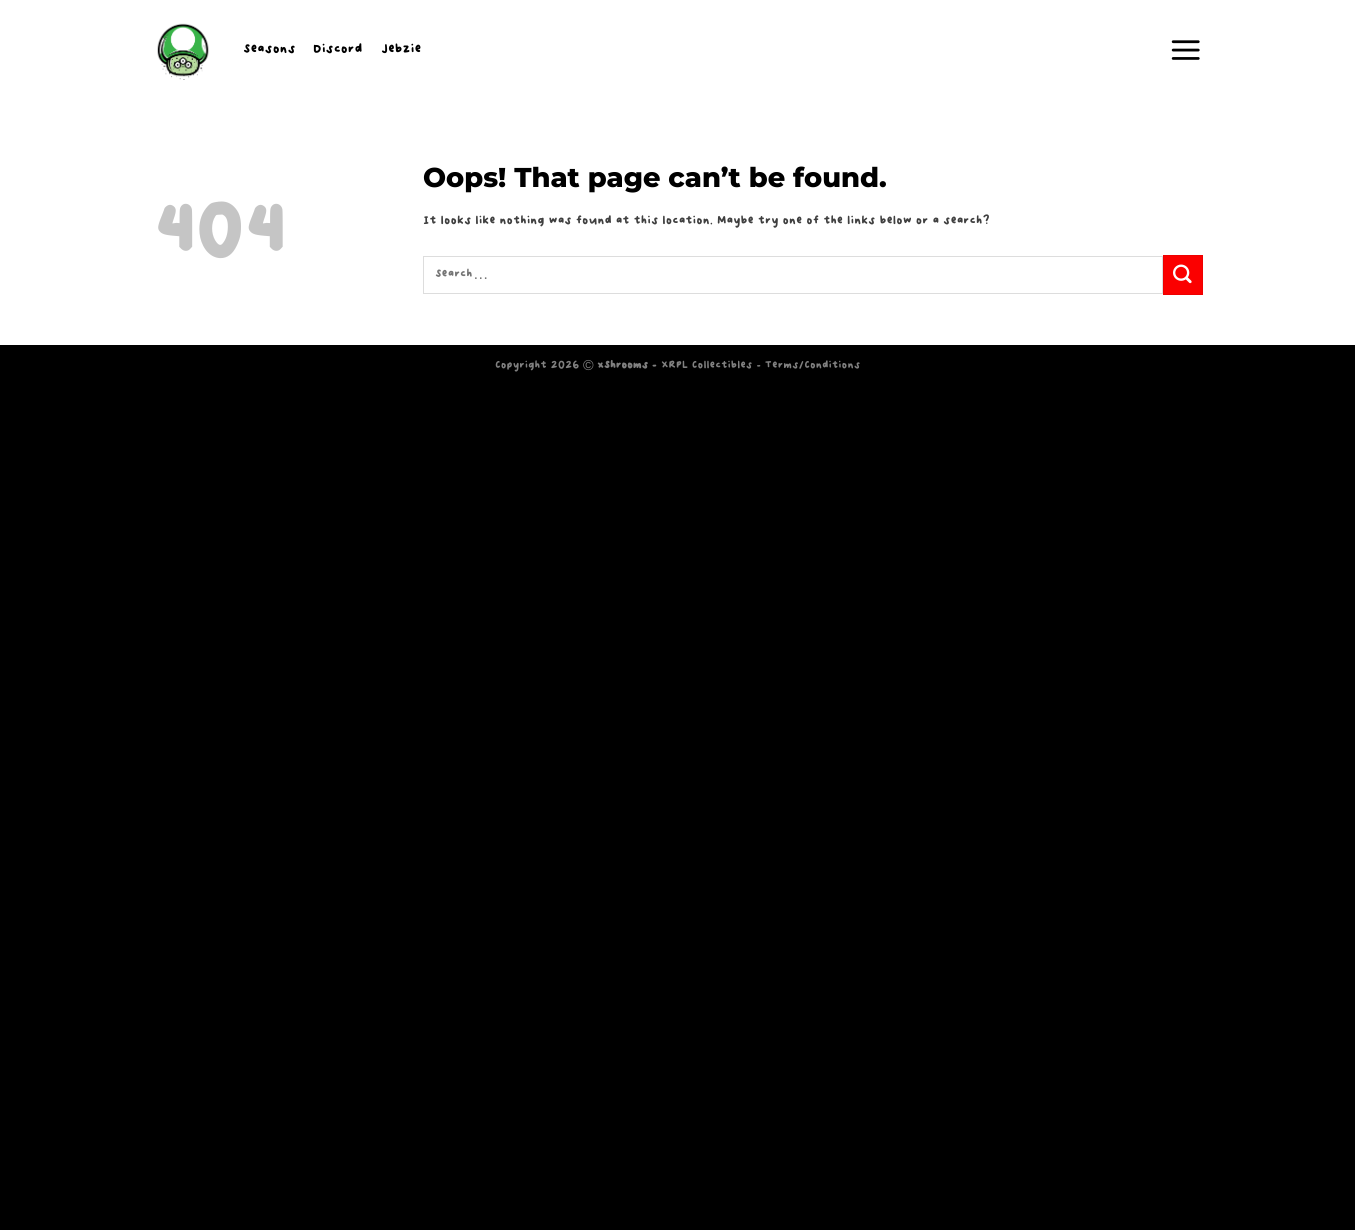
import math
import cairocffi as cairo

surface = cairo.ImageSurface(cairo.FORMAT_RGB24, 1355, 1230)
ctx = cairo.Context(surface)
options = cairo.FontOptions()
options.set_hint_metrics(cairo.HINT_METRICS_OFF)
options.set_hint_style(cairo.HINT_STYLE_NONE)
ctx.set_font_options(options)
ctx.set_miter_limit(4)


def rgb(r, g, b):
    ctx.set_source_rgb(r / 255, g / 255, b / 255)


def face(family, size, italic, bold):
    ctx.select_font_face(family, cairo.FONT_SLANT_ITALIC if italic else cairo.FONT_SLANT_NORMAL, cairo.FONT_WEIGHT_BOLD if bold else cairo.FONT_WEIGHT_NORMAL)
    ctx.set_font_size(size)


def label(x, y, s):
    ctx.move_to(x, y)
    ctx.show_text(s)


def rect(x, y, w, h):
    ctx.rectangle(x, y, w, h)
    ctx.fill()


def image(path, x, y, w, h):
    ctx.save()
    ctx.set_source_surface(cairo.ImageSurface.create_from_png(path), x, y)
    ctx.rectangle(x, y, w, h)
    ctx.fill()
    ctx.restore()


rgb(0, 0, 0)
ctx.paint()
rgb(255, 255, 255)
rect(0, 0, 1355, 345)
image('image0.png', 157, 23, 52, 57)
face('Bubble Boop', 17.5, 0, 0)
rgb(0, 0, 0)
label(243, 55, 'Seasons')
label(313, 55, 'Discord')
label(381, 55, 'Jebzie')
image('image1.png', 1171, 40, 29, 20)
face('Bubble Boop', 96, 0, 1)
rgb(197, 197, 197)
label(153, 266, '404')
face('Montserrat ExtraBold', 27.25, 0, 0)
rgb(0, 0, 0)
label(423, 187, 'Oops! That page can’t be found.')
face('Bubble Boop', 16, 0, 0)
rgb(63, 63, 63)
label(423, 226, 'It looks like nothing was found at this location. Maybe try one of the links below or a search?')
ctx.rectangle(423.5, 256.5, 739, 37)
rgb(221, 221, 221)
ctx.set_line_width(1)
ctx.stroke()
face('Bubble Boop', 15.5, 0, 0)
rgb(117, 117, 117)
label(435, 279, 'Search')
face('Liberation Sans', 15.5, 0, 0)
label(473, 279, '…')
rgb(251, 0, 0)
ctx.rectangle(1163.5, 255.5, 39, 39)
ctx.fill_preserve()
rgb(238, 0, 0)
ctx.stroke()
image('image2.png', 1173, 264, 19, 20)
face('Bubble Boop', 14.4, 0, 0)
rgb(128, 128, 128)
label(495, 370, 'Copyright 2026')
face('Liberation Sans', 14.4, 0, 0)
label(583, 370, '©')
face('Bubble Boop', 14.4, 0, 1)
label(597, 370, 'xShrooms -')
face('Bubble Boop', 14.4, 0, 0)
label(661, 370, 'XRPL Collectibles - Terms/Conditions')
surface.write_to_png('render.png')
